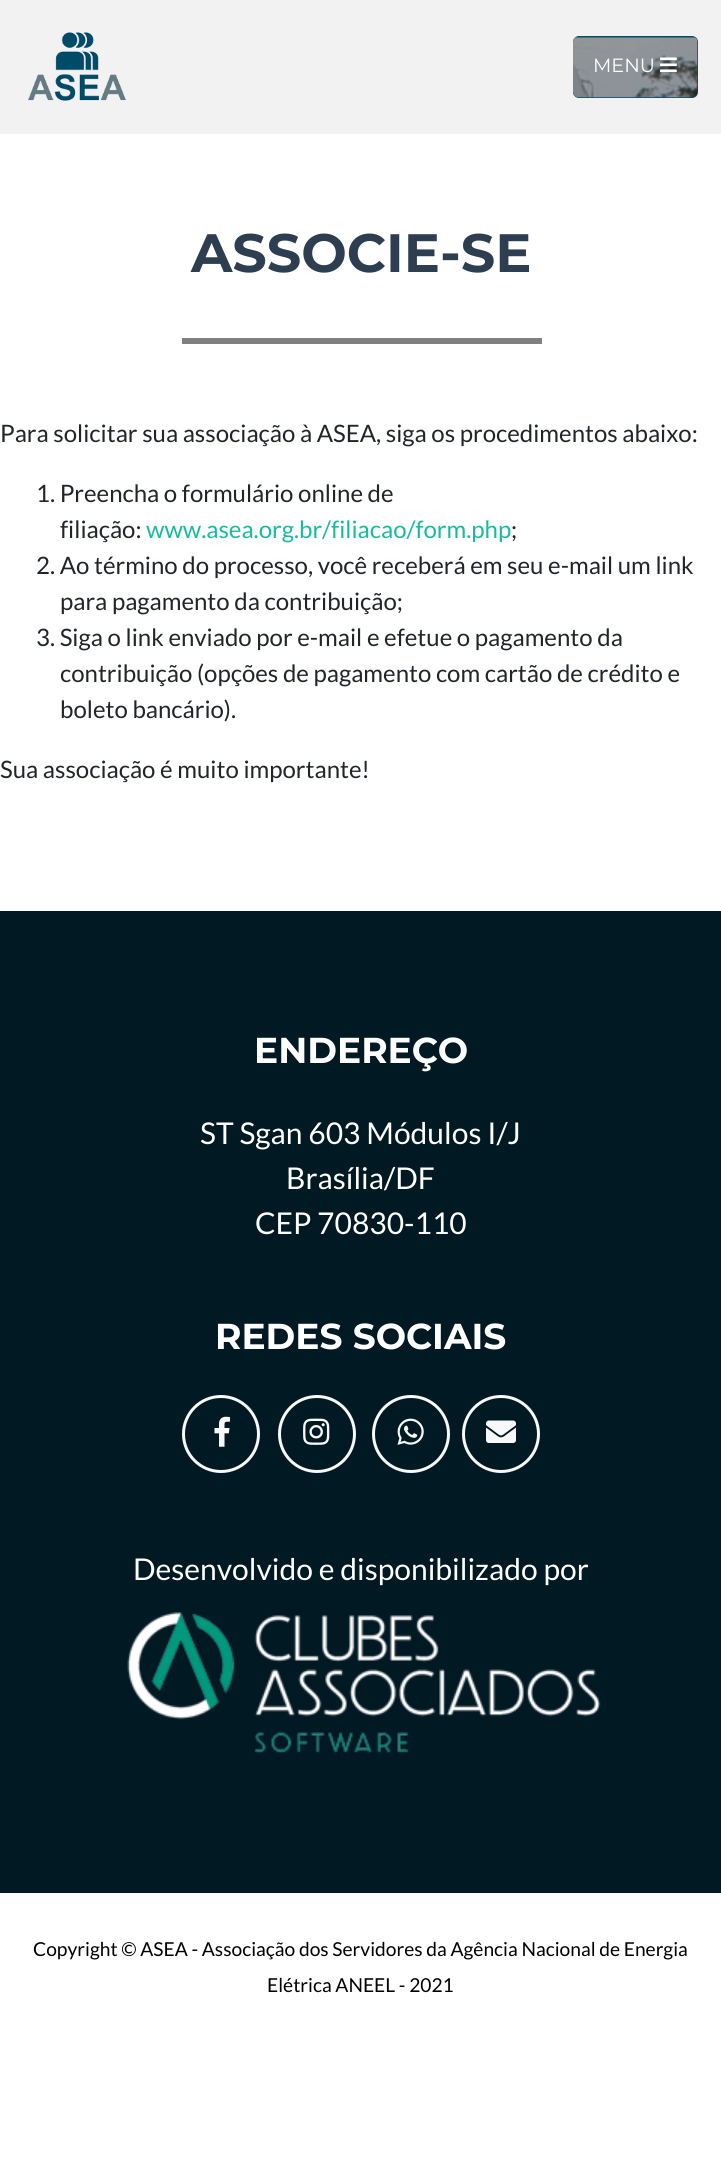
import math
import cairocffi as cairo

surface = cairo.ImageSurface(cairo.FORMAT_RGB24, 721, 2172)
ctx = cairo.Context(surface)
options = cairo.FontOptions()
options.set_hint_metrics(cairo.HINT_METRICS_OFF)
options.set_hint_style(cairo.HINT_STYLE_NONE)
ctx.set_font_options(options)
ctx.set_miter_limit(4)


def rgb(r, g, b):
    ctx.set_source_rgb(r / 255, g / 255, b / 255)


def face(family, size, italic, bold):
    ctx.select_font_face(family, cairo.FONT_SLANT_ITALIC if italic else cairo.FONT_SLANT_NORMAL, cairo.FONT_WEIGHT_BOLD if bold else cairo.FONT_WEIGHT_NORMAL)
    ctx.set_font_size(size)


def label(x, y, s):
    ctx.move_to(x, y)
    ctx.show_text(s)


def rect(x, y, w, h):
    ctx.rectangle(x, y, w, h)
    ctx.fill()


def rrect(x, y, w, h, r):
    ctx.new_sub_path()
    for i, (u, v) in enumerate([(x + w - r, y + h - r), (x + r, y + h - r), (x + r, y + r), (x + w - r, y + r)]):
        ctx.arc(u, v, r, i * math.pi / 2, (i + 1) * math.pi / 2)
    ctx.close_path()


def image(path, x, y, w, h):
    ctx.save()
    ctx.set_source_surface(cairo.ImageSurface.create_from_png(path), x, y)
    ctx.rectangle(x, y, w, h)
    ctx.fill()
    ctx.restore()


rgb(255, 255, 255)
ctx.paint()
rgb(242, 242, 242)
rect(0, 0, 721, 134)
image('image0.png', 28, 32, 99, 69)
rgb(1, 76, 105)
rrect(573, 36, 125, 62, 6)
ctx.fill()
image('image1.png', 573, 37, 125, 61)
face('Montserrat', 19.2, 0, 0)
rgb(255, 255, 255)
label(593, 72, 'MENU')
image('image2.png', 660, 57, 17, 16)
face('Montserrat', 54, 0, 1)
rgb(44, 62, 80)
label(191, 272, 'ASSOCIE-SE')
rgb(128, 128, 128)
rect(182, 338, 360, 6)
face('Lato', 24, 0, 0)
rgb(33, 37, 41)
label(0, 442, 'Para solicitar sua associação à ASEA, siga os procedimentos abaixo:')
label(36, 502, '1. Preencha o formulário online de')
label(60, 538, 'filiação:')
rgb(24, 188, 156)
label(146, 538, 'www.asea.org.br/filiacao/form.php')
rgb(33, 37, 41)
label(511, 538, ';')
label(36, 574, '2. Ao término do processo, você receberá em seu e-mail um link')
label(60, 610, 'para pagamento da contribuição;')
label(36, 646, '3. Siga o link enviado por e-mail e efetue o pagamento da')
label(60, 682, 'contribuição (opções de pagamento com cartão de crédito e')
label(60, 718, 'boleto bancário).')
label(0, 778, 'Sua associação é muito importante!')
rgb(0, 25, 35)
rect(0, 911, 721, 982)
face('Montserrat', 36, 0, 1)
rgb(255, 255, 255)
label(254, 1063, 'ENDEREÇO')
face('Lato', 30, 0, 0)
label(200, 1144, 'ST Sgan 603 Módulos I/J')
label(286, 1189, 'Brasília/DF')
label(255, 1234, 'CEP 70830-110')
face('Montserrat', 36, 0, 1)
label(215, 1349, 'REDES SOCIAIS')
ctx.new_path()
ctx.arc(221, 1434, 37.5, 0, 2 * math.pi)
rgb(248, 249, 250)
ctx.set_line_width(3)
ctx.stroke()
image('image3.png', 214, 1416, 16, 31)
ctx.arc(317, 1434, 37.5, 0, 2 * math.pi)
ctx.stroke()
image('image4.png', 303, 1418, 27, 27)
ctx.arc(411, 1434, 37.5, 0, 2 * math.pi)
ctx.stroke()
image('image5.png', 397, 1418, 27, 27)
ctx.arc(501, 1434, 37.5, 0, 2 * math.pi)
ctx.stroke()
image('image6.png', 486, 1420, 30, 23)
face('Lato', 30, 0, 0)
rgb(255, 255, 255)
label(133, 1580, 'Desenvolvido e disponibilizado por')
image('image7.png', 127, 1612, 474, 141)
face('Lato', 19.2, 0, 0)
rgb(0, 0, 0)
label(33, 1956, 'Copyright © ASEA - Associação dos Servidores da Agência Nacional de Energia')
label(267, 1992, 'Elétrica ANEEL - 2021')
surface.write_to_png('render.png')
